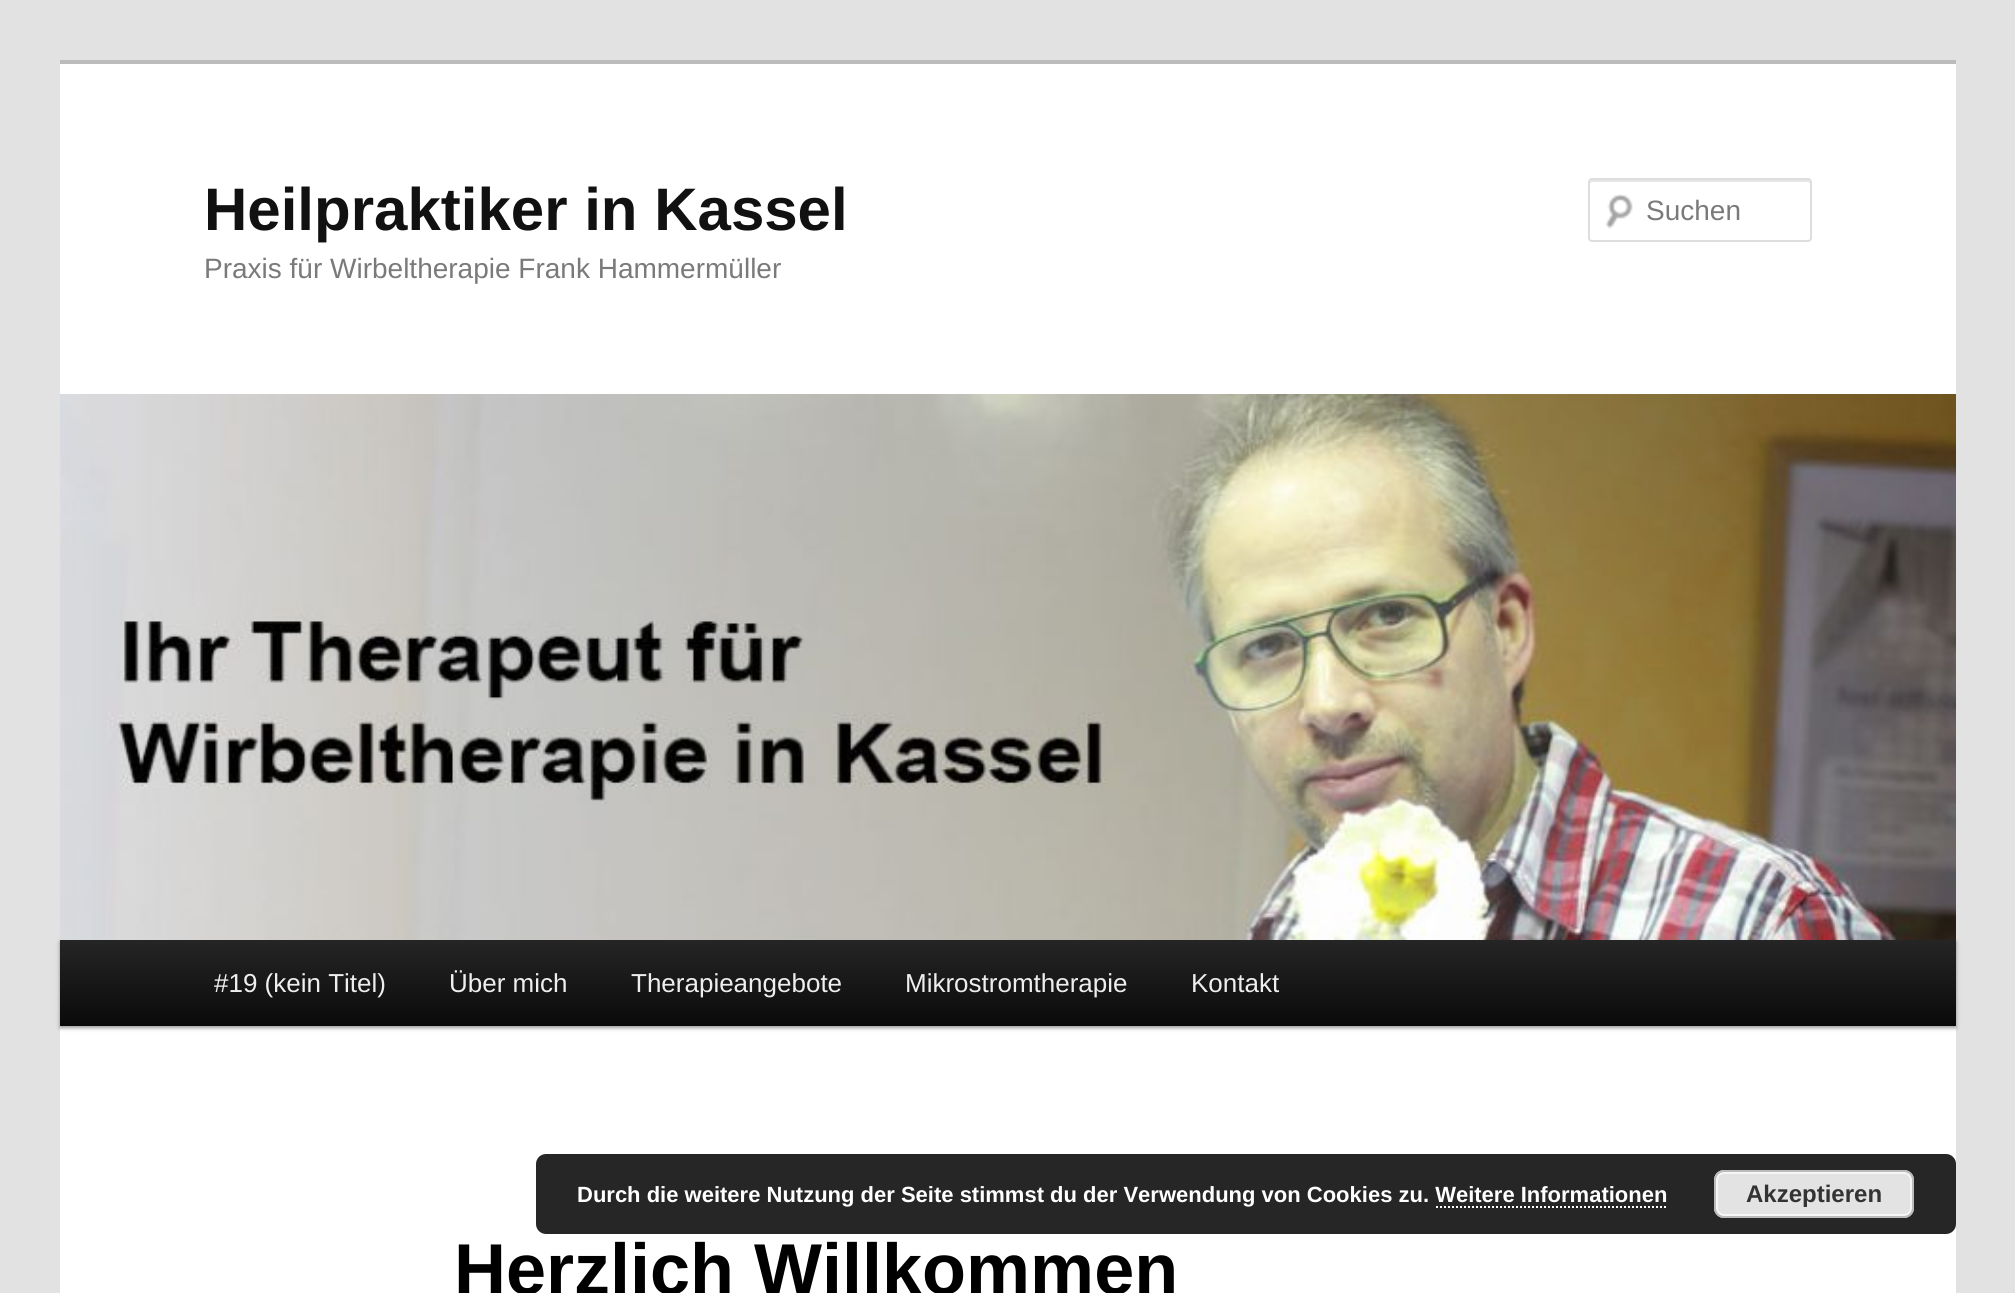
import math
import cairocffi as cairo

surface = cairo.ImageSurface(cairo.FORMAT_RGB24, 2015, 1293)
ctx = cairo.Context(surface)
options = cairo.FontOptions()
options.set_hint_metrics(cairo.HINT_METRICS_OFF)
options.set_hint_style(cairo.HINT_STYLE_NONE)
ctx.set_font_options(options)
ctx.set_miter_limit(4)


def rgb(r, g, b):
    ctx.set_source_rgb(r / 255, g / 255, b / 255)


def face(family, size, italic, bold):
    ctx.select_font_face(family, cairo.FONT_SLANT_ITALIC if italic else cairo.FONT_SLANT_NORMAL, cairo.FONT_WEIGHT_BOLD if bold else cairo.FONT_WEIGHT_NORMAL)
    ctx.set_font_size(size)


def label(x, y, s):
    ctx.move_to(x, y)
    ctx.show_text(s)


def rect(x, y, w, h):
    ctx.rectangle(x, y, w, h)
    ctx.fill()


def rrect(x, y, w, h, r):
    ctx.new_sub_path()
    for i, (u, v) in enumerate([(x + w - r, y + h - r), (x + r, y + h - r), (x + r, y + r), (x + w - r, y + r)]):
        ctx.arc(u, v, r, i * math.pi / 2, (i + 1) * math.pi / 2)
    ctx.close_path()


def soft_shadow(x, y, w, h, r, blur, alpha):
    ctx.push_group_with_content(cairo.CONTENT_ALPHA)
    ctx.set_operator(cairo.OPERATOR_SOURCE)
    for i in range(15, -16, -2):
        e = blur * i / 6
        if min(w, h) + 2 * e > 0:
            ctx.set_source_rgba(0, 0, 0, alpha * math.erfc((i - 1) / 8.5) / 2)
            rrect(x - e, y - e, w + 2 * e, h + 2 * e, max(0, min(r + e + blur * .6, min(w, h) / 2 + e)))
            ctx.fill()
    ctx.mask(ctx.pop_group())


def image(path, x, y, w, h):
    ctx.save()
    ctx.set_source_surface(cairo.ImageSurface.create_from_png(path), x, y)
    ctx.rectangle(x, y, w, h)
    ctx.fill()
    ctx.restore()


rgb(226, 226, 226)
ctx.paint()
rgb(255, 255, 255)
rect(60, 64, 1896, 1229)
rgb(187, 187, 187)
rect(60, 60, 1896, 4)
face('Liberation Sans', 60, 0, 1)
rgb(17, 17, 17)
label(204, 230, 'Heilpraktiker in Kassel')
face('Liberation Sans', 28, 0, 0)
rgb(122, 122, 122)
label(204, 278, 'Praxis für Wirbeltherapie Frank Hammermüller')
image('image0.png', 1605, 194, 28, 35)
rgb(230, 230, 230)
ctx.new_path()
ctx.move_to(1592, 182)
ctx.line_to(1808, 182)
ctx.curve_to(1809, 182, 1810, 183, 1810, 184)
ctx.line_to(1810, 182)
ctx.curve_to(1810, 181, 1809, 180, 1808, 180)
ctx.line_to(1592, 180)
ctx.curve_to(1591, 180, 1590, 181, 1590, 182)
ctx.line_to(1590, 184)
ctx.curve_to(1590, 183, 1591, 182, 1592, 182)
ctx.close_path()
ctx.fill()
rrect(1589, 179, 222, 62, 3)
rgb(221, 221, 221)
ctx.stroke()
rgb(122, 122, 122)
label(1646, 220, 'Suchen')
rgb(0, 0, 0)
soft_shadow(60, 942, 1896, 86, 0, 2, 0.4)
image('image1.png', 60, 394, 1896, 546)
gradient = cairo.LinearGradient(1008, 940, 1008, 1026)
gradient.add_color_stop_rgba(0, 0.145, 0.145, 0.145, 1)
gradient.add_color_stop_rgba(1, 0.039, 0.039, 0.039, 1)
ctx.set_source(gradient)
rect(60, 940, 1896, 86)
face('Liberation Sans', 26, 0, 0)
rgb(238, 238, 238)
label(214, 992, '#19 (kein Titel)')
label(449, 992, 'Über mich')
label(631, 992, 'Therapieangebote')
label(905, 992, 'Mikrostromtherapie')
label(1191, 992, 'Kontakt')
face('Liberation Sans', 72, 0, 1)
rgb(0, 0, 0)
label(454, 1294, 'Herzlich Willkommen')
rgb(38, 38, 38)
rrect(536, 1154, 1420, 80, 10)
ctx.fill()
face('Liberation Sans', 22, 0, 1)
rgb(255, 255, 255)
label(577, 1202, 'Durch die weitere Nutzung der Seite stimmst du der Verwendung von Cookies zu. Weitere Informationen')
rgb(227, 227, 227)
rrect(1714, 1170, 200, 48, 10)
ctx.fill()
rrect(1717, 1173, 194, 42, 7)
rgb(246, 246, 246)
ctx.stroke()
rrect(1715, 1171, 198, 46, 9)
rgb(187, 187, 187)
ctx.stroke()
face('Liberation Sans', 24, 0, 1)
rgb(51, 51, 51)
label(1746, 1202, 'Akzeptieren')
ctx.new_path()
ctx.move_to(1436, 1207)
ctx.line_to(1668, 1207)
rgb(255, 255, 255)
ctx.set_dash([2, 2])
ctx.stroke()
surface.write_to_png('render.png')
